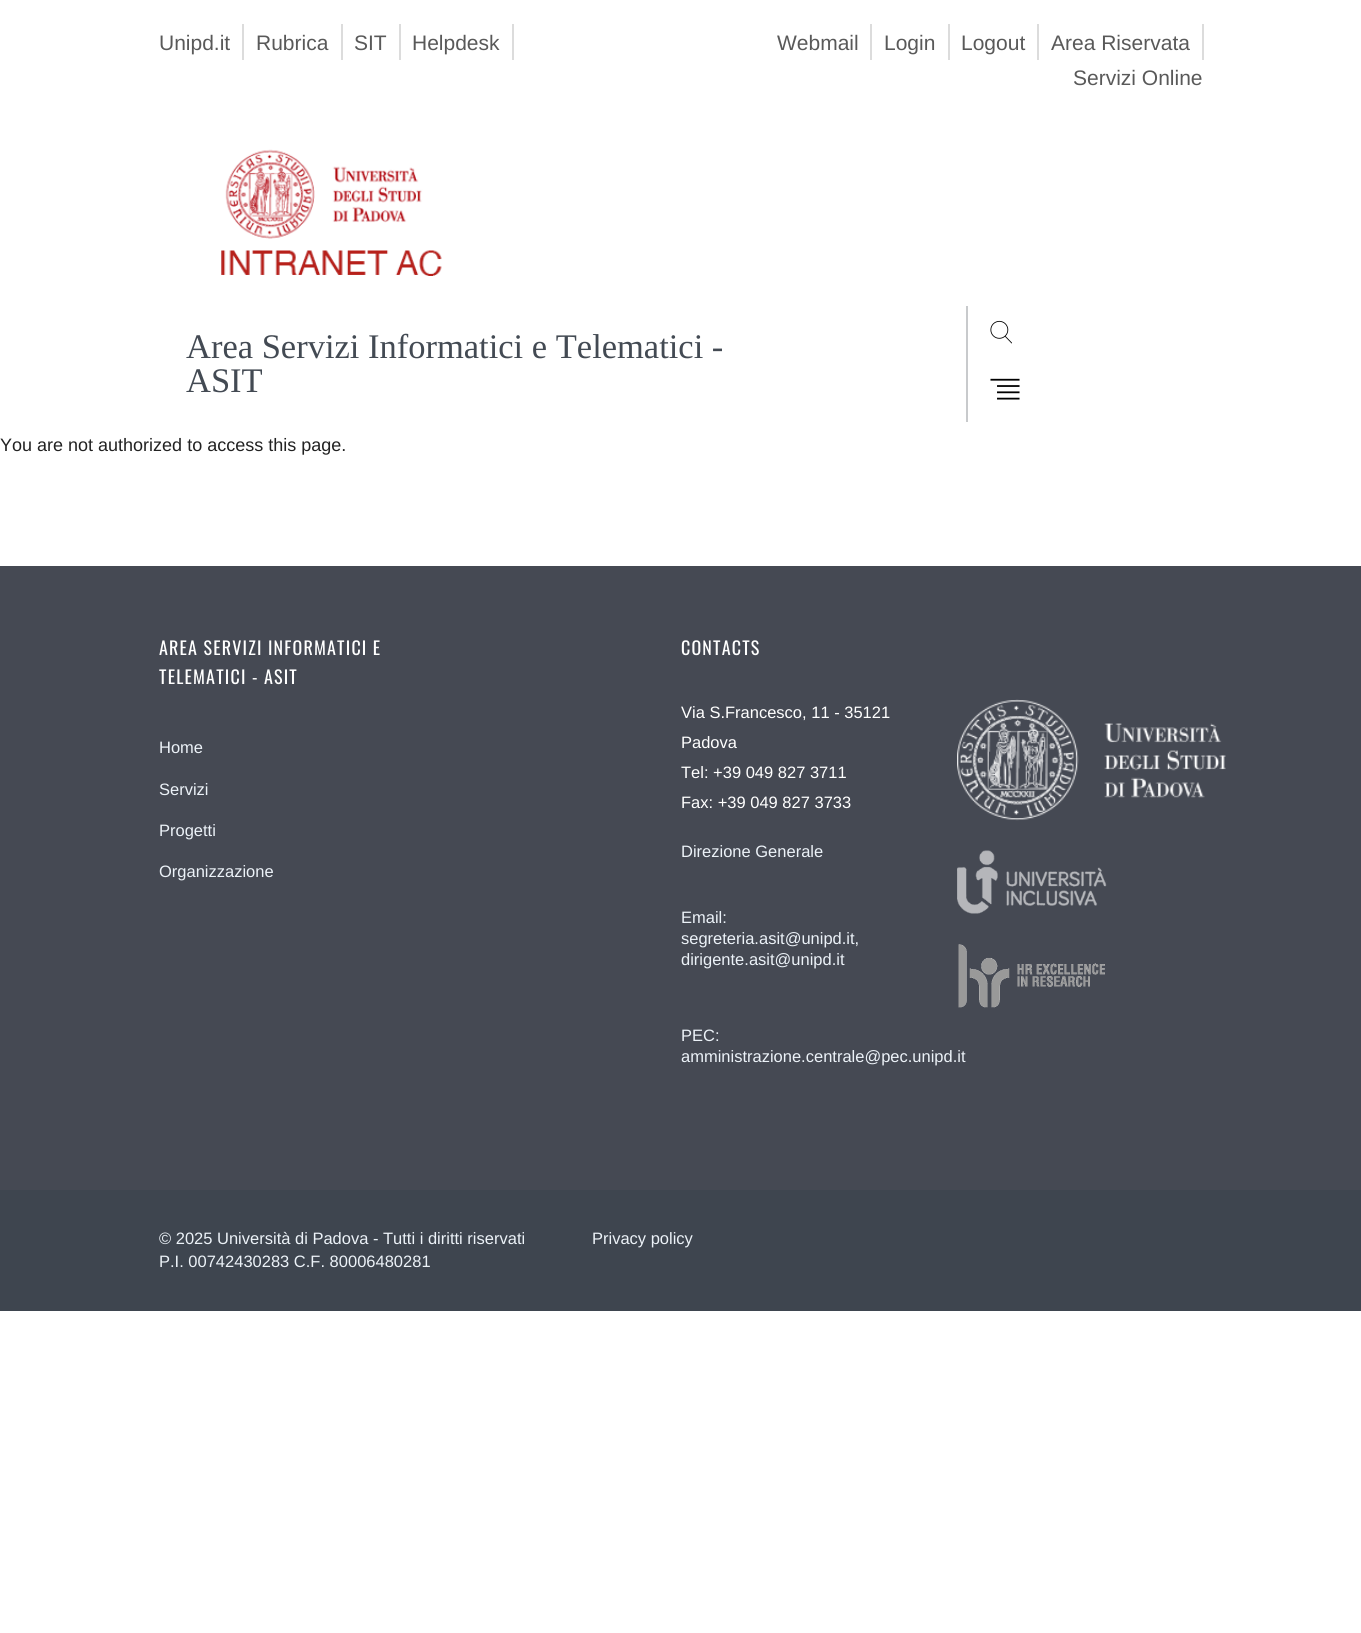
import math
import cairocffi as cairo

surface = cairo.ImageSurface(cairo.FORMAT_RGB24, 1361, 1633)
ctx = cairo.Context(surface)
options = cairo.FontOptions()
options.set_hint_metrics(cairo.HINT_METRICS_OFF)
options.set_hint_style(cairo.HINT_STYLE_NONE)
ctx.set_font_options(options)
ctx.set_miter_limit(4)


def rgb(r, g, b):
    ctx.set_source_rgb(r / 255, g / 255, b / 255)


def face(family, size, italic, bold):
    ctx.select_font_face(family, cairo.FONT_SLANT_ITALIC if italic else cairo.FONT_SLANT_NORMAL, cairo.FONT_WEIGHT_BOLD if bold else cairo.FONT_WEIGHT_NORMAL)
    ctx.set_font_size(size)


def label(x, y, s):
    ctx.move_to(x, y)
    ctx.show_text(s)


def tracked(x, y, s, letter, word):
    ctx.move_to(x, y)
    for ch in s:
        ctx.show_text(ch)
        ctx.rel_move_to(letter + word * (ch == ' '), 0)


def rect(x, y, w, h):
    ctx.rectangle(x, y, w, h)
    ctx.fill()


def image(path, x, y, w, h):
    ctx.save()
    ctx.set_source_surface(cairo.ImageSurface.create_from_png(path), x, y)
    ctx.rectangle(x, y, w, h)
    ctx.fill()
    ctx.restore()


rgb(255, 255, 255)
ctx.paint()
rgb(220, 220, 220)
rect(242, 24, 2, 36)
face('Liberation Sans', 21, 0, 0)
rgb(89, 89, 89)
label(159, 50, 'Unipd.it')
rgb(220, 220, 220)
rect(341, 24, 2, 36)
rgb(89, 89, 89)
label(256, 50, 'Rubrica')
rgb(220, 220, 220)
rect(399, 24, 2, 36)
rgb(89, 89, 89)
label(354, 50, 'SIT')
rgb(220, 220, 220)
rect(512, 24, 2, 36)
rgb(89, 89, 89)
label(412, 50, 'Helpdesk')
rgb(220, 220, 220)
rect(870, 24, 2, 36)
rgb(89, 89, 89)
label(777, 50, 'Webmail')
rgb(220, 220, 220)
rect(948, 24, 2, 36)
rgb(89, 89, 89)
label(884, 50, 'Login')
rgb(220, 220, 220)
rect(1037, 24, 2, 36)
rgb(89, 89, 89)
label(961, 50, 'Logout')
rgb(220, 220, 220)
rect(1202, 24, 2, 36)
rgb(89, 89, 89)
label(1051, 50, 'Area Riservata')
label(1073, 85, 'Servizi Online')
image('image0.png', 221, 149, 221, 127)
face('Liberation Serif', 34.5, 0, 0)
rgb(67, 74, 83)
label(186, 358, 'Area Servizi Informatici e Telematici -')
label(186, 392, 'ASIT')
rgb(200, 202, 204)
rect(966, 306, 2, 116)
image('image1.png', 990, 320, 22, 24)
image('image2.png', 990, 378, 30, 22)
face('Liberation Sans', 18, 0, 0)
rgb(34, 34, 34)
label(0, 451, 'You are not authorized to access this page.')
rgb(69, 73, 83)
rect(0, 566, 1361, 624)
face('Oswald', 18, 0, 0)
rgb(255, 255, 255)
tracked(159, 655, 'AREA SERVIZI INFORMATICI E', 1.2, 0)
tracked(159, 684, 'TELEMATICI - ASIT', 1.2, 0)
face('Liberation Sans', 16.5, 0, 0)
rgb(236, 242, 248)
label(159, 753, 'Home')
label(159, 795, 'Servizi')
label(159, 836, 'Progetti')
label(159, 877, 'Organizzazione')
face('Oswald', 18, 0, 0)
rgb(255, 255, 255)
tracked(681, 655, 'CONTACTS', 1.2, 0)
face('Liberation Sans', 16.5, 0, 0)
label(681, 718, 'Via S.Francesco, 11 - 35121')
label(681, 748, 'Padova')
label(681, 778, 'Tel: +39 049 827 3711')
label(681, 808, 'Fax: +39 049 827 3733')
rgb(236, 242, 248)
label(681, 857, 'Direzione Generale')
label(681, 923, 'Email:')
label(681, 944, 'segreteria.asit@unipd.it,')
label(681, 965, 'dirigente.asit@unipd.it')
label(681, 1041, 'PEC:')
label(681, 1062, 'amministrazione.centrale@pec.unipd.it')
image('image3.png', 957, 699, 269, 122)
image('image4.png', 957, 850, 150, 64)
image('image5.png', 958, 944, 147, 64)
rgb(62, 69, 79)
rect(0, 1190, 1361, 121)
rgb(236, 242, 248)
label(159, 1244, '© 2025 Università di Padova - Tutti i diritti riservati')
label(159, 1267, 'P.I. 00742430283 C.F. 80006480281')
label(592, 1244, 'Privacy policy')
surface.write_to_png('render.png')
